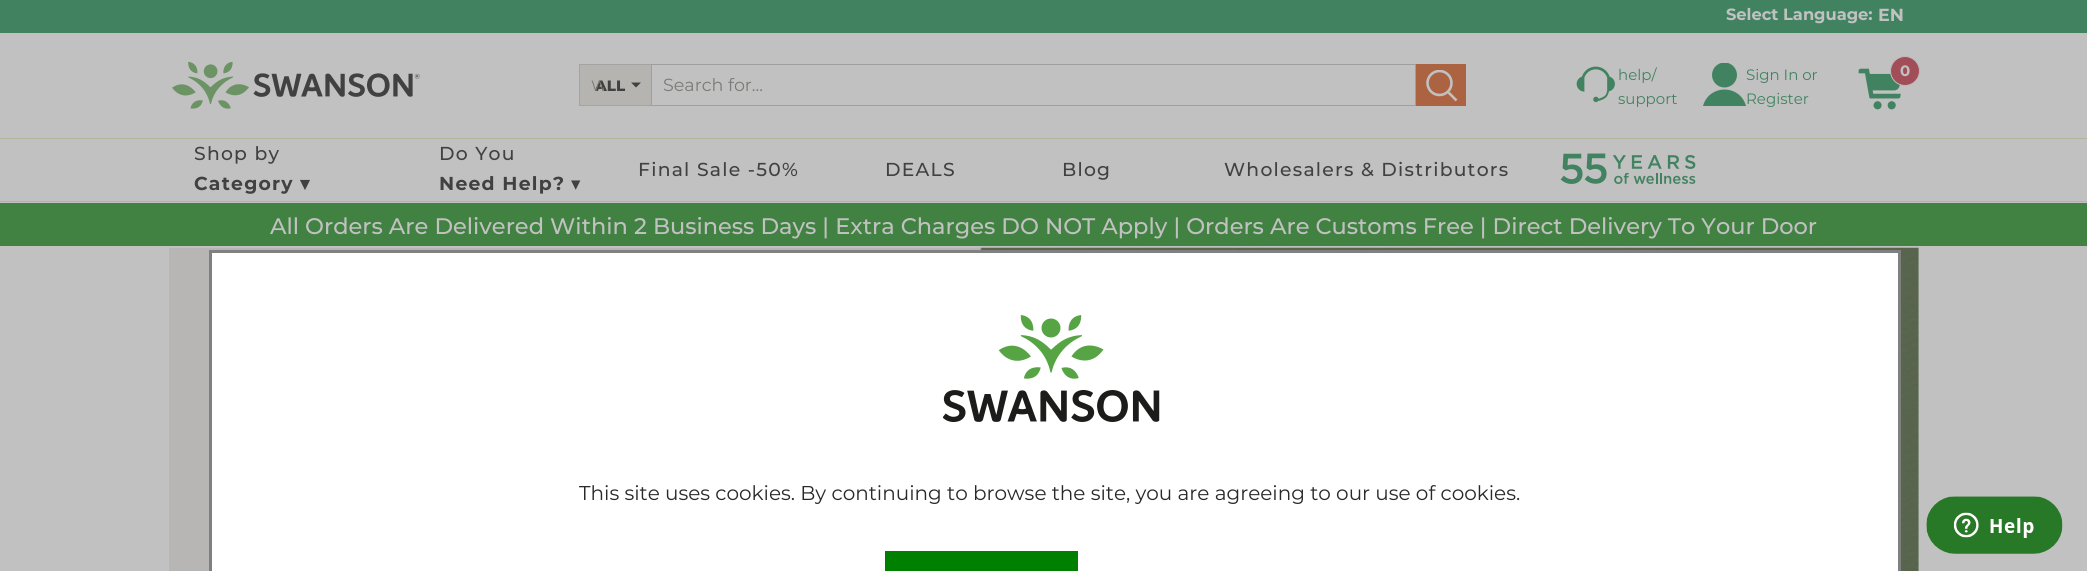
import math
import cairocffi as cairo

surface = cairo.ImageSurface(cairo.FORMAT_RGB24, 2087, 571)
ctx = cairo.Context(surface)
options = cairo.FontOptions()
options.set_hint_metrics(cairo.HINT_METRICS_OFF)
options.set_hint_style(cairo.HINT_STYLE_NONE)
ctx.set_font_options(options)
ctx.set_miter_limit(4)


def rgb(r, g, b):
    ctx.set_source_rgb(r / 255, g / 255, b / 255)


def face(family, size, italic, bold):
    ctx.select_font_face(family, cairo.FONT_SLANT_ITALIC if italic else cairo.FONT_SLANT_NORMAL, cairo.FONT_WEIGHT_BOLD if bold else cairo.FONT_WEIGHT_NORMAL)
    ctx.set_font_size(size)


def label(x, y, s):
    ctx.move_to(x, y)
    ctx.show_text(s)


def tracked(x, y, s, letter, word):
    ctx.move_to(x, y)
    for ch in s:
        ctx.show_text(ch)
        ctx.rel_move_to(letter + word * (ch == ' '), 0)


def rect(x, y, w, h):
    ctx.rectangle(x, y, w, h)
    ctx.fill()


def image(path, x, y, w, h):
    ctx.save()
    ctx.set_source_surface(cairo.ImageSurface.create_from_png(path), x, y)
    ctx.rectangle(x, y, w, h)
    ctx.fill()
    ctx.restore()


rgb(193, 193, 193)
ctx.paint()
rgb(65, 131, 96)
rect(0, 0, 2087, 33)
face('Montserrat', 16.25, 0, 1)
rgb(193, 193, 193)
label(1726, 20, 'Select Language:')
face('Montserrat', 17.5, 0, 1)
label(1878, 21, 'EN')
image('image0.png', 172, 61, 248, 48)
rgb(182, 180, 176)
rect(580, 65, 71, 40)
rgb(164, 164, 164)
rect(579, 64, 72, 1)
rect(579, 105, 72, 1)
rect(579, 64, 1, 42)
face('Montserrat ExtraBold', 15, 0, 0)
rgb(65, 65, 65)
label(595, 91, 'ALL')
ctx.save()
ctx.rectangle(591, 75, 13, 21)
ctx.clip()
face('Montserrat', 15, 0, 0)
rgb(124, 123, 120)
label(591, 91, 'W')
ctx.restore()
ctx.new_path()
ctx.move_to(631, 82.5)
ctx.line_to(641, 82.5)
ctx.line_to(636, 87.5)
ctx.close_path()
ctx.fill()
ctx.rectangle(651.5, 64.5, 764, 41)
rgb(159, 159, 159)
ctx.set_line_width(1)
ctx.stroke()
face('Montserrat', 17.5, 0, 0)
rgb(124, 123, 120)
label(663, 91, 'Search for...')
rgb(171, 99, 65)
rect(1416, 64, 50, 42)
ctx.save()
ctx.rectangle(1426, 70, 32, 31)
ctx.clip()
ctx.arc(1439.5, 83, 12, 0, 2 * math.pi)
rgb(193, 193, 193)
ctx.set_line_width(2.6)
ctx.stroke()
ctx.restore()
ctx.new_path()
ctx.move_to(1448.5, 92.5)
ctx.line_to(1456.5, 100.5)
rgb(193, 193, 193)
ctx.set_line_width(2.6)
ctx.stroke()
image('image1.png', 1576, 66, 39, 37)
face('Montserrat', 15, 0, 0)
rgb(65, 131, 96)
label(1618, 80, 'help/')
label(1618, 104, 'support')
ctx.save()
ctx.rectangle(1703, 63, 43, 43)
ctx.clip()
ctx.arc(1724.5, 75, 12.5, 0, 2 * math.pi)
ctx.fill()
ctx.restore()
ctx.new_path()
ctx.move_to(1746, 106)
ctx.curve_to(1740, 84, 1709, 84, 1703, 106)
ctx.close_path()
ctx.fill()
label(1746, 80, 'Sign In or')
label(1746, 104, 'Register')
image('image2.png', 1858, 68, 43, 42)
rgb(161, 78, 88)
ctx.arc(1905, 71, 14.5, 0, 2 * math.pi)
ctx.fill_preserve()
rgb(188, 188, 188)
ctx.set_line_width(1)
ctx.stroke()
face('Montserrat', 15, 0, 1)
rgb(193, 193, 193)
label(1900, 76, '0')
rgb(176, 183, 155)
rect(0, 138, 2087, 1)
rect(0, 201, 2087, 1)
face('Montserrat Medium', 18.75, 0, 0)
rgb(65, 65, 65)
tracked(194, 160, 'Shop by', 1.25, 0)
face('Montserrat', 18.75, 0, 1)
tracked(194, 190, 'Category', 1.25, 0)
face('DejaVu Sans', 18.75, 0, 1)
tracked(300, 190, '▾', 1.25, 0)
face('Montserrat Medium', 18.75, 0, 0)
tracked(439, 160, 'Do You', 1.25, 0)
face('Montserrat', 18.75, 0, 1)
tracked(439, 190, 'Need Help?', 1.25, 0)
face('DejaVu Sans', 18.75, 0, 0)
tracked(571, 190, '▾', 1.25, 0)
face('Montserrat Medium', 18.75, 0, 0)
tracked(638, 176, 'Final Sale -50%', 1.25, 0)
tracked(885, 176, 'DEALS', 1.25, 0)
tracked(1062, 176, 'Blog', 1.25, 0)
tracked(1224, 176, 'Wholesalers & Distributors', 1.25, 0)
image('image3.png', 1560, 153, 136, 31)
rgb(65, 129, 65)
rect(0, 203, 2087, 43)
face('Montserrat Medium', 22.5, 0, 0)
rgb(193, 193, 193)
label(270, 234, 'All Orders Are Delivered Within 2 Business Days | Extra Charges DO NOT Apply | Orders Are Customs Free | Direct Delivery To Your Door')
image('image4.png', 169, 247, 1750, 324)
rgb(255, 255, 255)
ctx.rectangle(210.5, 251.5, 1689, 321)
ctx.fill_preserve()
rgb(128, 128, 128)
ctx.set_line_width(3)
ctx.stroke()
image('image5.png', 943, 315, 217, 107)
face('Montserrat', 20, 0, 0)
rgb(41, 41, 41)
label(579, 500, 'This site uses cookies. By continuing to browse the site, you are agreeing to our use of cookies.')
rgb(0, 128, 0)
rect(885, 551, 193, 20)
image('image6.png', 1926, 496, 137, 58)
surface.write_to_png('render.png')
